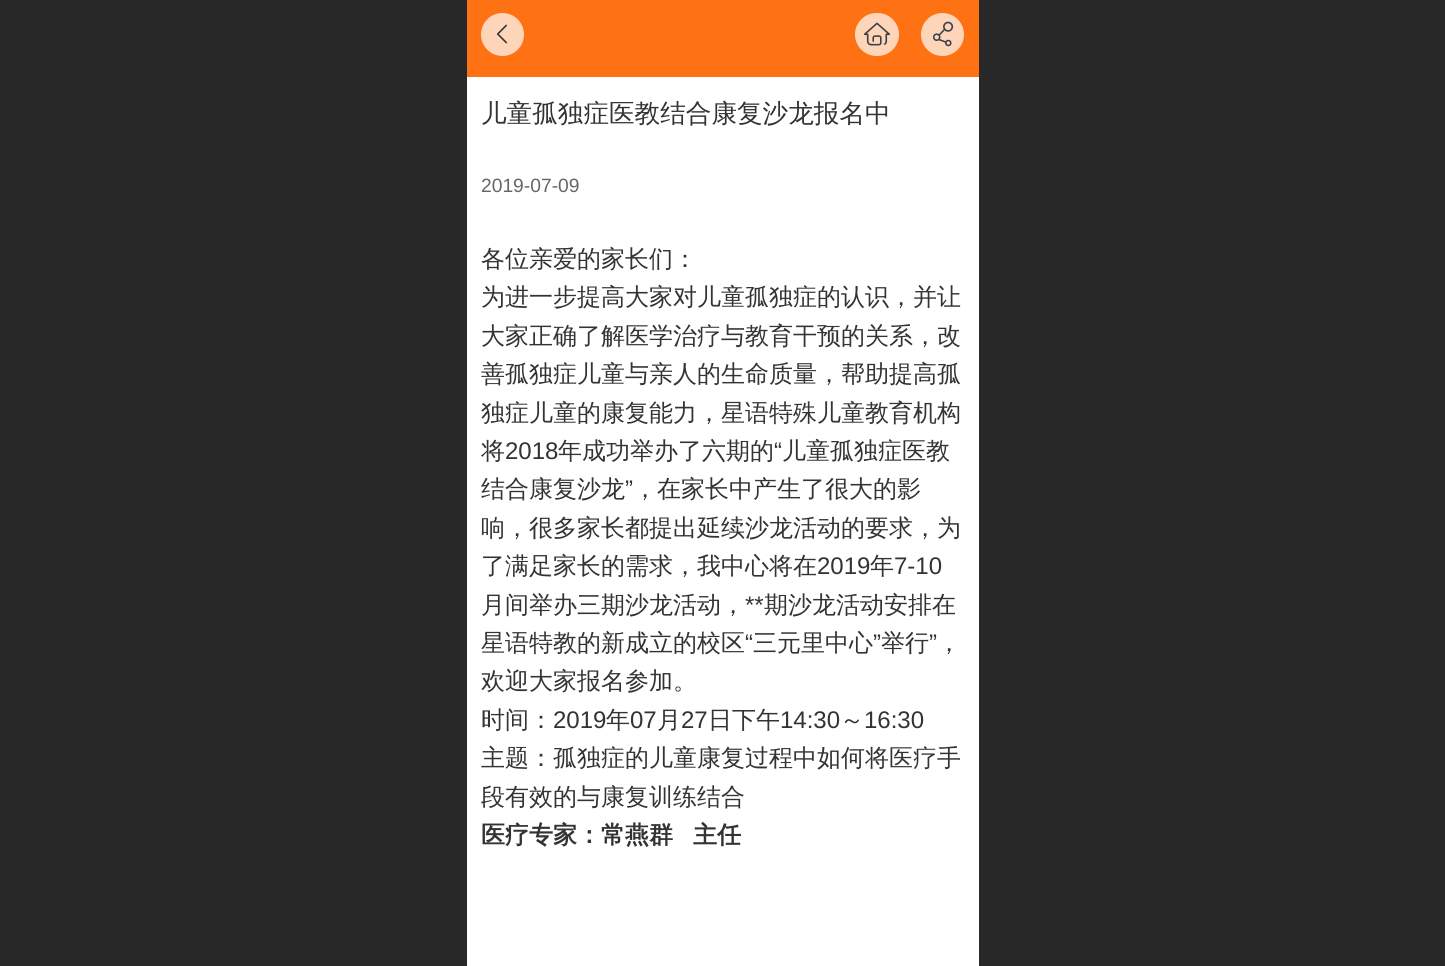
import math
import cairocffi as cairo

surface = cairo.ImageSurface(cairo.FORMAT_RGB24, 1445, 966)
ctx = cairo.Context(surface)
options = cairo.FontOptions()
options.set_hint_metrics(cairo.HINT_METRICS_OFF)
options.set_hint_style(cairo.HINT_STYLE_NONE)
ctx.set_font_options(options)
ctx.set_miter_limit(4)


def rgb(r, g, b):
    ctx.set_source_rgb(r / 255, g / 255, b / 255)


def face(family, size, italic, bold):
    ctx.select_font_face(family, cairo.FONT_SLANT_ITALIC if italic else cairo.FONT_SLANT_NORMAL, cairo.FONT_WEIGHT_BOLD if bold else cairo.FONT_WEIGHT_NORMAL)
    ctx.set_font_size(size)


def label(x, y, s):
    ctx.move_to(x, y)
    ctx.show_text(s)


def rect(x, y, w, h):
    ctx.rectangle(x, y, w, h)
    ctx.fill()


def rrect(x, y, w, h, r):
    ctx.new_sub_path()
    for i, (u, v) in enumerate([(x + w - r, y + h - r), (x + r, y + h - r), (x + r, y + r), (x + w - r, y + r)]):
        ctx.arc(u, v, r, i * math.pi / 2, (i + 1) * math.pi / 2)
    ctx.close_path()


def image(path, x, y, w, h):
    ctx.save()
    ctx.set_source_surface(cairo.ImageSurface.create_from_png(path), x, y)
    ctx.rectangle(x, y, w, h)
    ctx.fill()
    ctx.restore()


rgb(255, 255, 255)
ctx.paint()
rgb(40, 40, 40)
rect(0, 0, 467, 966)
rgb(255, 114, 20)
rect(467, 0, 512, 77)
rgb(255, 213, 185)
ctx.arc(502.5, 34.5, 21.5, 0, 2 * math.pi)
ctx.fill()
image('image0.png', 497, 24, 11, 20)
rrect(855, 13, 44, 43, 21.5)
ctx.fill()
image('image1.png', 863, 22, 28, 24)
ctx.arc(942.5, 34.5, 21.5, 0, 2 * math.pi)
ctx.fill()
image('image2.png', 932, 21, 22, 26)
face('WenQuanYi Zen Hei Medium', 25.6, 0, 0)
rgb(51, 51, 51)
label(481, 122, '儿童孤独症医教结合康复沙龙报名中')
face('Liberation Sans', 19.25, 0, 0)
rgb(102, 102, 102)
label(481, 192, '2019-07-09')
face('WenQuanYi Zen Hei Medium', 24, 0, 0)
rgb(51, 51, 51)
label(481, 267, '各位亲爱的家长们：')
label(481, 305, '为进一步提高大家对儿童孤独症的认识，并让')
label(481, 344, '大家正确了解医学治疗与教育干预的关系，改')
label(481, 382, '善孤独症儿童与亲人的生命质量，帮助提高孤')
label(481, 421, '独症儿童的康复能力，星语特殊儿童教育机构')
label(481, 459, '将')
face('Liberation Sans', 24, 0, 0)
label(505, 459, '2018')
face('WenQuanYi Zen Hei Medium', 24, 0, 0)
label(558, 459, '年成功举办了六期的')
face('Liberation Sans', 24, 0, 0)
label(774, 459, '“')
face('WenQuanYi Zen Hei Medium', 24, 0, 0)
label(782, 459, '儿童孤独症医教')
label(481, 497, '结合康复沙龙')
face('Liberation Sans', 24, 0, 0)
label(625, 497, '”')
face('WenQuanYi Zen Hei Medium', 24, 0, 0)
label(633, 497, '，在家长中产生了很大的影')
label(481, 536, '响，很多家长都提出延续沙龙活动的要求，为')
label(481, 574, '了满足家长的需求，我中心将在')
face('Liberation Sans', 24, 0, 0)
label(817, 574, '2019')
face('WenQuanYi Zen Hei Medium', 24, 0, 0)
label(870, 574, '年')
face('Liberation Sans', 24, 0, 0)
label(894, 574, '7-10')
face('WenQuanYi Zen Hei Medium', 24, 0, 0)
label(481, 613, '月间举办三期沙龙活动，')
face('Liberation Sans', 24, 0, 0)
label(745, 613, '**')
face('WenQuanYi Zen Hei Medium', 24, 0, 0)
label(764, 613, '期沙龙活动安排在')
label(481, 651, '星语特教的新成立的校区')
face('Liberation Sans', 24, 0, 0)
label(745, 651, '“')
face('WenQuanYi Zen Hei Medium', 24, 0, 0)
label(753, 651, '三元里中心')
face('Liberation Sans', 24, 0, 0)
label(873, 651, '”')
face('WenQuanYi Zen Hei Medium', 24, 0, 0)
label(881, 651, '举行')
face('Liberation Sans', 24, 0, 0)
label(929, 651, '”')
face('WenQuanYi Zen Hei Medium', 24, 0, 0)
label(937, 651, '，')
label(481, 689, '欢迎大家报名参加。')
label(481, 728, '时间：')
face('Liberation Sans', 24, 0, 0)
label(553, 728, '2019')
face('WenQuanYi Zen Hei Medium', 24, 0, 0)
label(606, 728, '年')
face('Liberation Sans', 24, 0, 0)
label(630, 728, '07')
face('WenQuanYi Zen Hei Medium', 24, 0, 0)
label(657, 728, '月')
face('Liberation Sans', 24, 0, 0)
label(681, 728, '27')
face('WenQuanYi Zen Hei Medium', 24, 0, 0)
label(708, 728, '日下午')
face('Liberation Sans', 24, 0, 0)
label(780, 728, '14:30')
face('WenQuanYi Zen Hei Medium', 24, 0, 0)
label(840, 728, '～')
face('Liberation Sans', 24, 0, 0)
label(864, 728, '16:30')
face('WenQuanYi Zen Hei Medium', 24, 0, 0)
label(481, 766, '主题：孤独症的儿童康复过程中如何将医疗手')
label(481, 805, '段有效的与康复训练结合')
face('WenQuanYi Zen Hei', 24, 0, 1)
label(481, 843, '医疗专家：常燕群')
label(693, 843, '主任')
rgb(40, 40, 40)
rect(979, 0, 466, 966)
surface.write_to_png('render.png')
